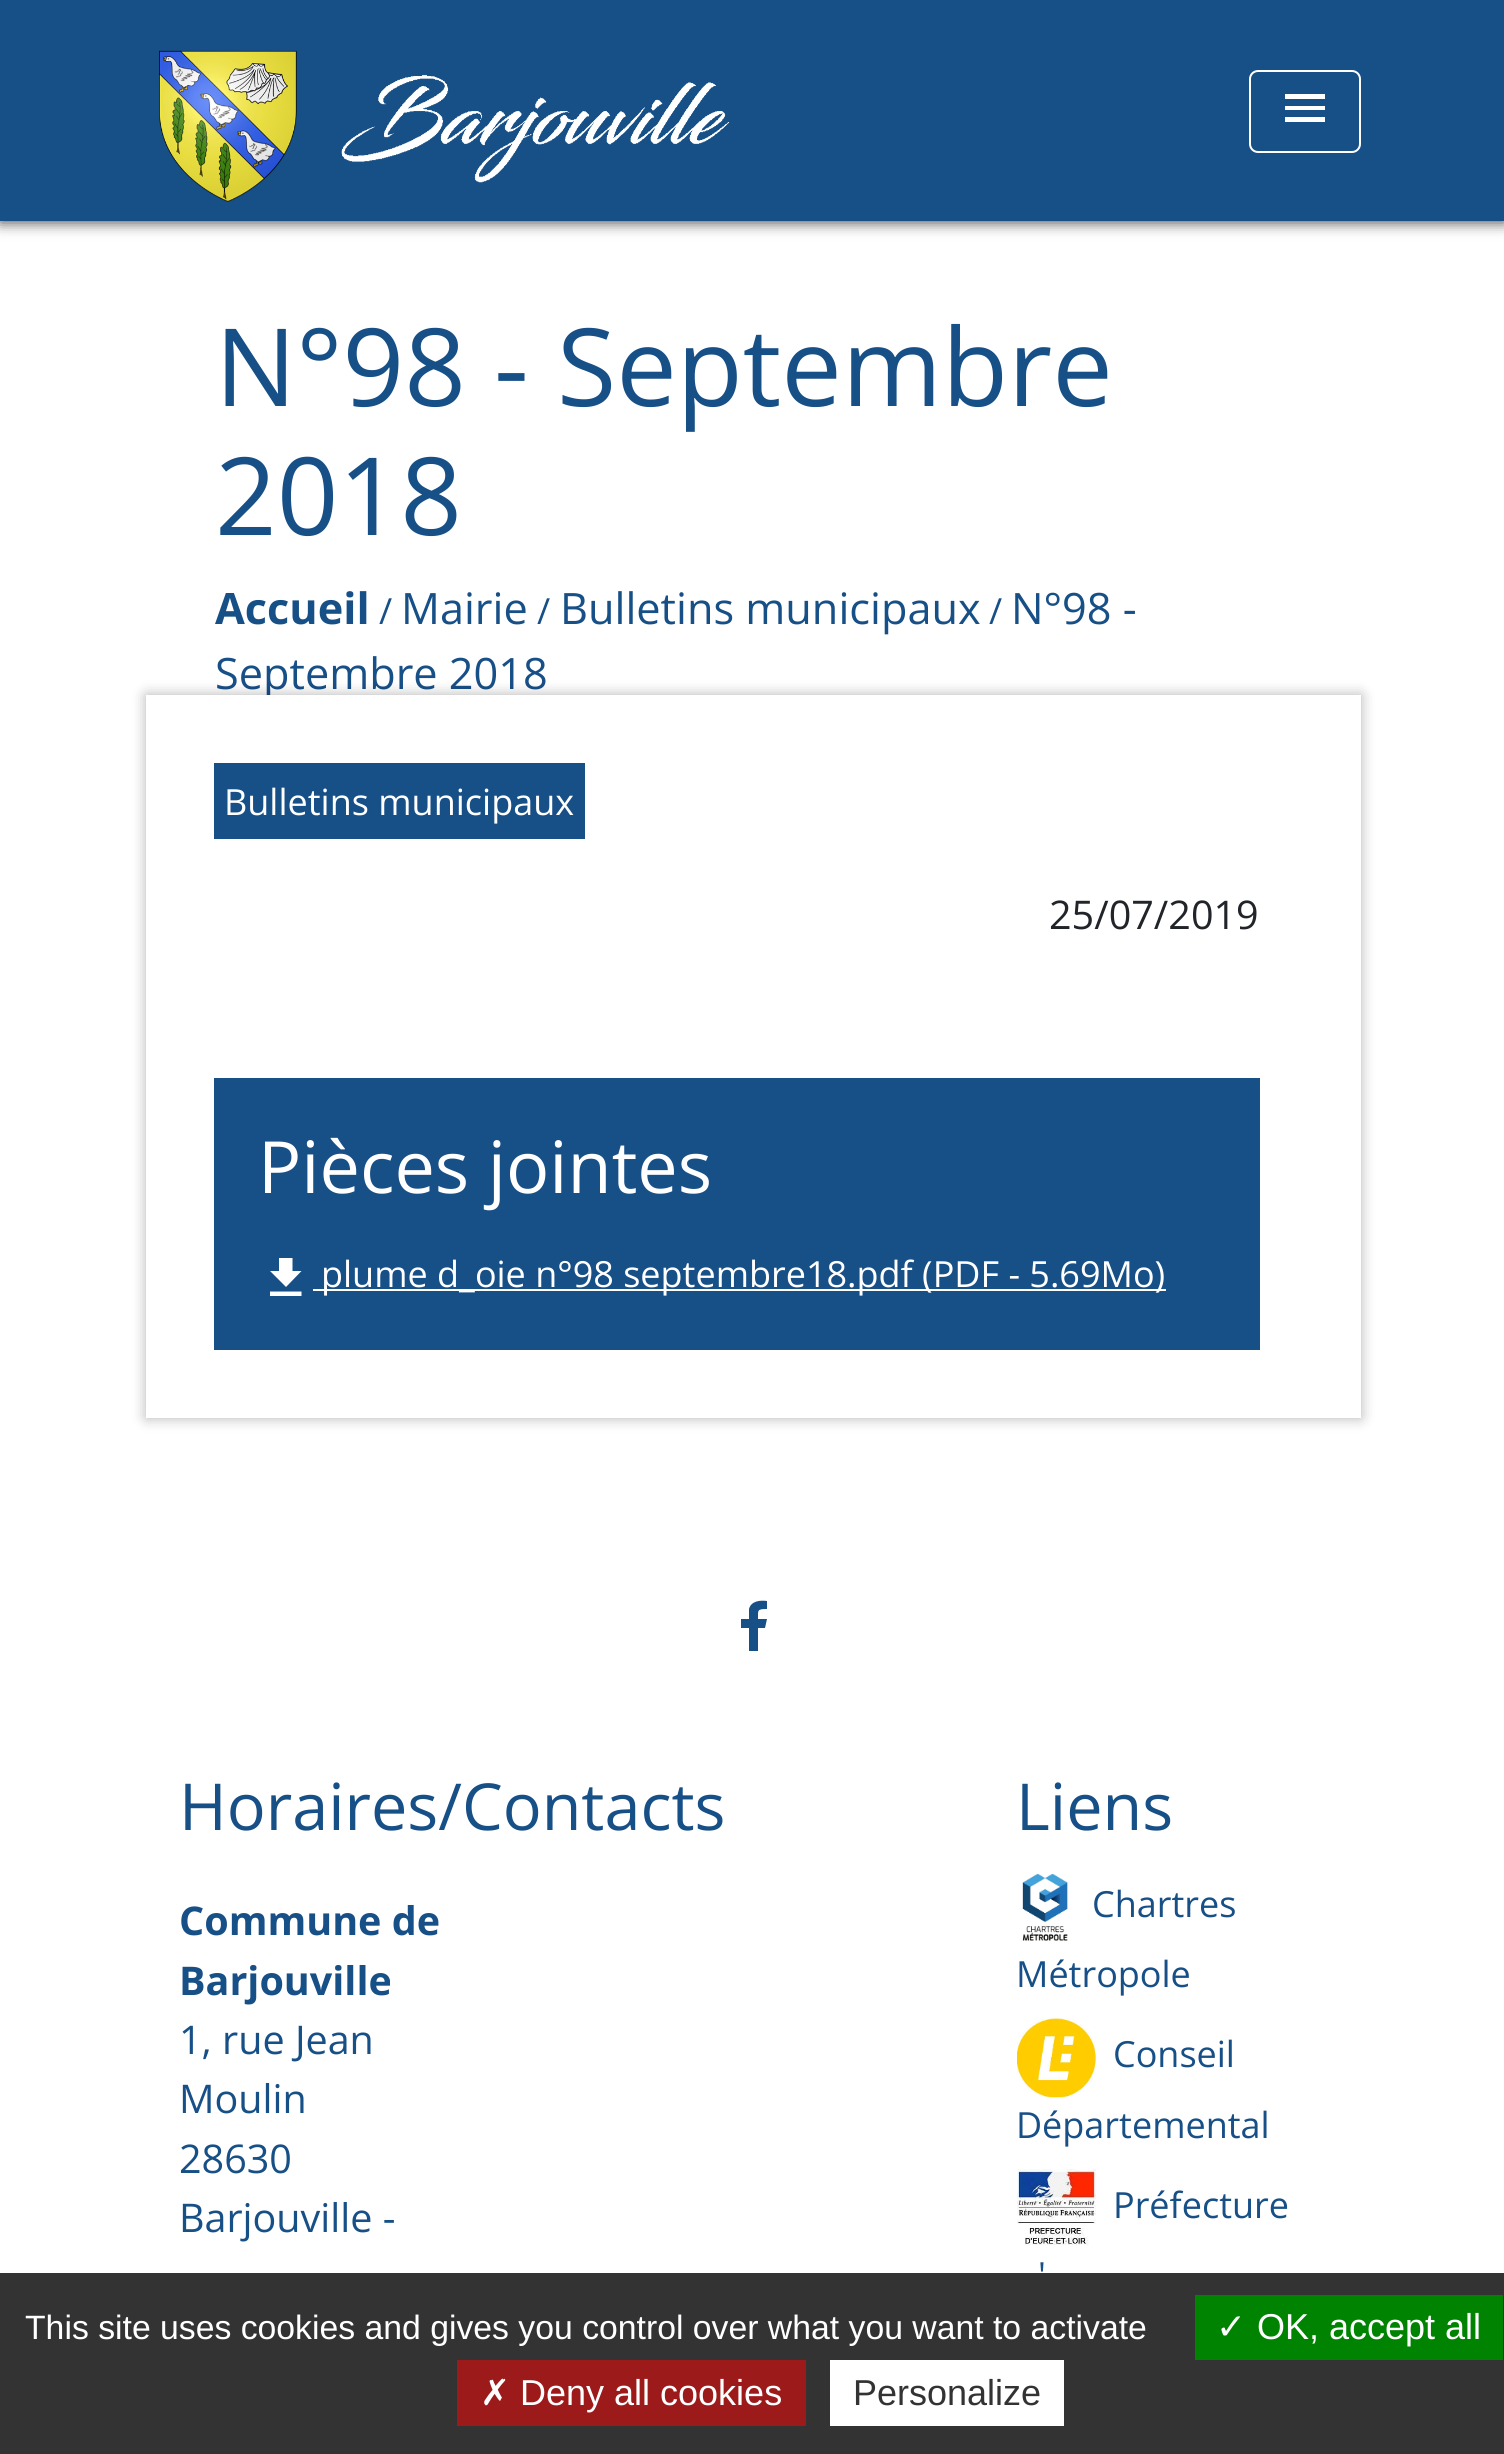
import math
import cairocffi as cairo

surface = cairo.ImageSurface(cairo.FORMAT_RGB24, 1504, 2454)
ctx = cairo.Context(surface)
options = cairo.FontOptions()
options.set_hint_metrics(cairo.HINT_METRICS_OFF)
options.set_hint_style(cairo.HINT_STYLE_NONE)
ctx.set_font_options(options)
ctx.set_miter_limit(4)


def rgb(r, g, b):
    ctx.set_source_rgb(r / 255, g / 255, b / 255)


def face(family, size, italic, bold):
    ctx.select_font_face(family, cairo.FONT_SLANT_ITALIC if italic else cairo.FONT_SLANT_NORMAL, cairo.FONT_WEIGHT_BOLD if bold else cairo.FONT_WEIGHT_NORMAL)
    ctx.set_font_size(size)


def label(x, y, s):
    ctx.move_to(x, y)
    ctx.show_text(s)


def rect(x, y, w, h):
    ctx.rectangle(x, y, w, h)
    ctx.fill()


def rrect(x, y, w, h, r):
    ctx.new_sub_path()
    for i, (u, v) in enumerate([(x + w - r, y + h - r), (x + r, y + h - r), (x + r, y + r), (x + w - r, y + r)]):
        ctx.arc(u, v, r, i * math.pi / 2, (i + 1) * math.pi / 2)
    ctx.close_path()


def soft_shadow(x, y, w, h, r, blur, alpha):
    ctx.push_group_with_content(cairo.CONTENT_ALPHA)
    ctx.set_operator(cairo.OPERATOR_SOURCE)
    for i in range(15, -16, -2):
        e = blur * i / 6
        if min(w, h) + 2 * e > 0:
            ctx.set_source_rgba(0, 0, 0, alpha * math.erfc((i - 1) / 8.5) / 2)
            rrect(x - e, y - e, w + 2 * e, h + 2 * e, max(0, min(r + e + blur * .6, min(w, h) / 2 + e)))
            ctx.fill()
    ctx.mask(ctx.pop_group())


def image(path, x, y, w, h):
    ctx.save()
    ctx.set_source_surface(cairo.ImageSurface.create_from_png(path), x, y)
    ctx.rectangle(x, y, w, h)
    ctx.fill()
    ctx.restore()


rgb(255, 255, 255)
ctx.paint()
rgb(83, 83, 83)
soft_shadow(0, 2, 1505, 221, 0, 7, 1)
rgb(23, 79, 135)
rect(0, 0, 1504, 221)
image('image0.png', 159, 50, 571, 152)
rrect(1250, 71, 110, 81, 8)
rgb(255, 255, 255)
ctx.stroke()
ctx.new_path()
ctx.move_to(1285, 94)
ctx.line_to(1325, 94)
ctx.line_to(1325, 99)
ctx.line_to(1285, 99)
ctx.close_path()
ctx.move_to(1285, 110)
ctx.line_to(1285, 106)
ctx.line_to(1325, 106)
ctx.line_to(1325, 110)
ctx.close_path()
ctx.move_to(1285, 122)
ctx.line_to(1285, 117)
ctx.line_to(1325, 117)
ctx.line_to(1325, 122)
ctx.close_path()
ctx.fill()
face('Open Sans', 108, 0, 0)
rgb(23, 79, 135)
label(215, 406, 'N°98 - Septembre')
label(215, 535, '2018')
face('Open Sans', 43.25, 0, 1)
label(215, 624, 'Accueil')
face('Open Sans', 36, 0, 0)
label(379, 624, '/')
face('Open Sans', 43.25, 0, 0)
label(401, 624, 'Mairie')
face('Open Sans', 36, 0, 0)
label(537, 624, '/')
face('Open Sans', 43.25, 0, 0)
label(560, 624, 'Bulletins municipaux')
face('Open Sans', 36, 0, 0)
label(989, 624, '/')
face('Open Sans', 43.25, 0, 0)
label(1011, 624, 'N°98 -')
label(215, 689, 'Septembre 2018')
rgb(0, 0, 0)
soft_shadow(146, 695, 1215, 723, 0, 7, 0.3)
rgb(255, 255, 255)
rect(146, 695, 1215, 723)
rgb(23, 79, 135)
rect(214, 763, 371, 76)
face('Open Sans', 36, 0, 0)
rgb(255, 255, 255)
label(224, 815, 'Bulletins municipaux')
face('Open Sans', 39.5, 0, 0)
rgb(33, 37, 41)
label(1049, 929, '25/07/2019')
rgb(23, 79, 135)
rect(214, 1078, 1046, 272)
face('Open Sans', 72, 0, 0)
rgb(255, 255, 255)
label(258, 1193, 'Pièces jointes')
ctx.new_path()
ctx.move_to(270, 1291.5)
ctx.line_to(301.5, 1291.5)
ctx.line_to(301.5, 1296)
ctx.line_to(270, 1296)
ctx.close_path()
ctx.move_to(301.5, 1271)
ctx.line_to(286, 1287)
ctx.line_to(270, 1271)
ctx.line_to(279, 1271)
ctx.line_to(279, 1258)
ctx.line_to(292.5, 1258)
ctx.line_to(292.5, 1271)
ctx.close_path()
ctx.fill()
rect(313, 1289, 853, 2)
face('Open Sans', 36, 0, 0)
label(321, 1287, 'plume d_oie n°98 septembre18.pdf (PDF - 5.69Mo)')
rgb(23, 79, 135)
ctx.new_path()
ctx.move_to(767, 1601)
ctx.line_to(767, 1609)
ctx.curve_to(757, 1609, 758, 1610, 758, 1619)
ctx.line_to(767, 1619)
ctx.line_to(765, 1628)
ctx.line_to(758, 1628)
ctx.line_to(758, 1651)
ctx.line_to(749, 1651)
ctx.line_to(749, 1628)
ctx.line_to(741, 1628)
ctx.line_to(741, 1619)
ctx.line_to(749, 1619)
ctx.line_to(749, 1609)
ctx.curve_to(751, 1601, 760, 1600, 767, 1601)
ctx.close_path()
ctx.fill()
face('Open Sans', 64.75, 0, 0)
label(179, 1830, 'Horaires/Contacts')
face('Open Sans', 39.5, 0, 1)
label(179, 1935, 'Commune de')
label(179, 1995, 'Barjouville')
face('Open Sans', 39.5, 0, 0)
label(179, 2054, '1, rue Jean')
label(179, 2113, 'Moulin')
label(179, 2173, '28630')
label(179, 2232, 'Barjouville -')
face('Open Sans', 64.75, 0, 0)
label(1016, 1830, 'Liens')
image('image1.png', 1022, 1873, 46, 68)
face('Open Sans', 36, 0, 0)
label(1092, 1917, 'Chartres')
label(1016, 1987, 'Métropole')
image('image2.png', 1017, 2018, 79, 80)
label(1113, 2067, 'Conseil')
label(1016, 2138, 'Départemental')
image('image3.png', 1017, 2169, 79, 76)
label(1113, 2218, 'Préfecture')
label(1038, 2288, '\'')
rgb(51, 51, 51)
rect(0, 2273, 1504, 181)
face('Liberation Sans', 33.75, 0, 0)
rgb(255, 255, 255)
label(25, 2339, 'This site uses cookies and gives you control over what you want to activate')
rgb(0, 131, 0)
rect(1195, 2295, 308, 65)
face('DejaVu Sans', 36, 0, 0)
rgb(255, 255, 255)
label(1216, 2339, '✓')
face('Liberation Sans', 36, 0, 0)
label(1257, 2339, 'OK, accept all')
rgb(156, 26, 26)
rect(457, 2360, 349, 66)
face('DejaVu Sans', 36, 0, 0)
rgb(255, 255, 255)
label(480, 2405, '✗')
face('Liberation Sans', 36, 0, 0)
label(520, 2405, 'Deny all cookies')
rect(830, 2360, 234, 66)
rgb(51, 51, 51)
label(853, 2405, 'Personalize')
surface.write_to_png('render.png')
